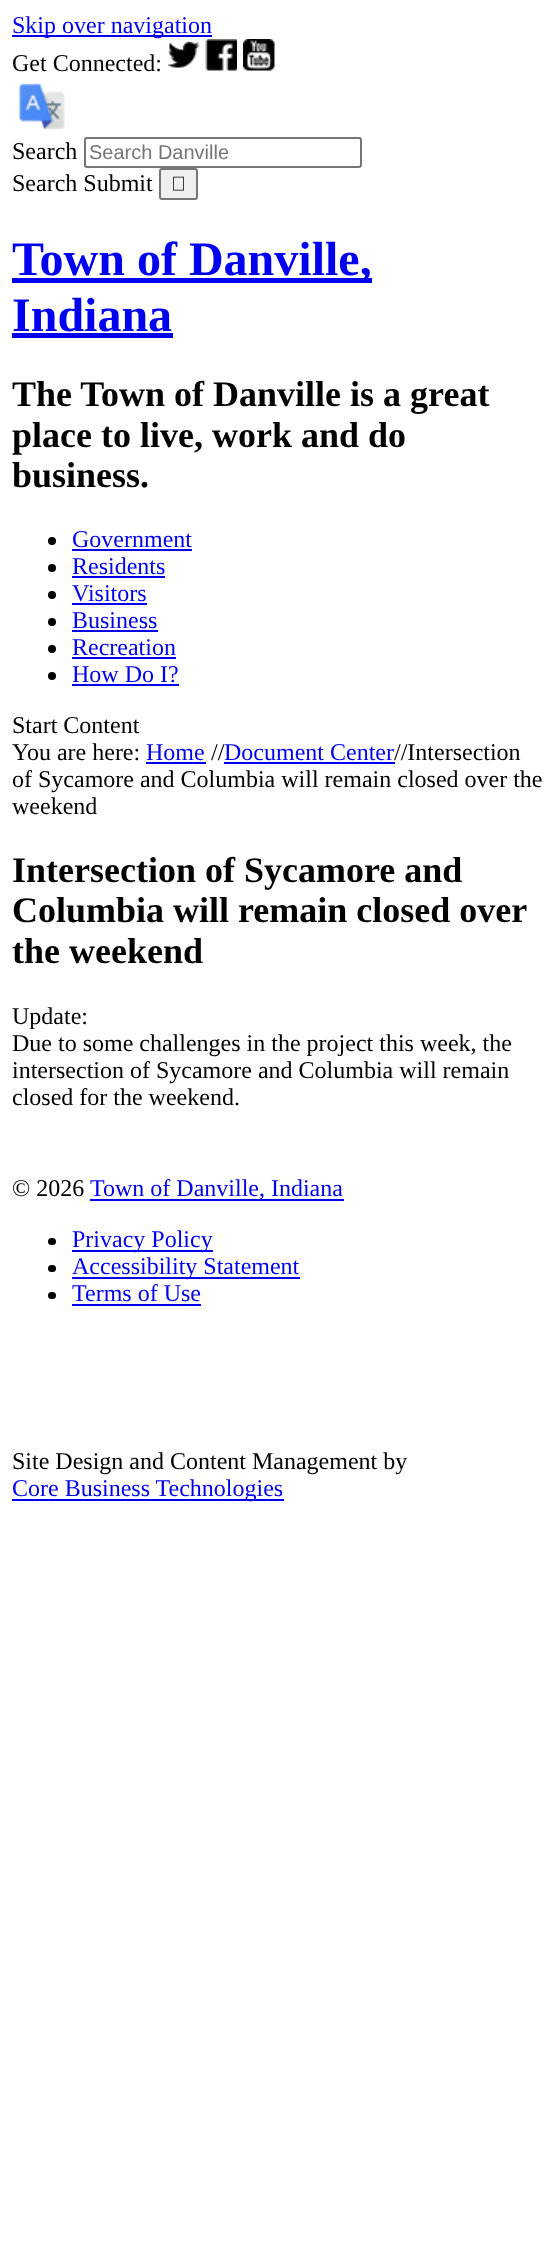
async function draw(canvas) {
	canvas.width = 555;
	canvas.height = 2267;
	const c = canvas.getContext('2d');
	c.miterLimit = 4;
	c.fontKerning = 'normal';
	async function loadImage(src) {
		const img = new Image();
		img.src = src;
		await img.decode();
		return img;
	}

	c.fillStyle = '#fff';
	c.fillRect(0, 0, 555, 2267);
	c.fillStyle = '#00e';
	c.fillRect(12, 35, 200, 2);
	c.font = '24px Liberation Serif';
	c.fillText('Skip over navigation', 12, 33);
	c.fillStyle = '#000';
	c.fillText('Get Connected:', 12, 71);
	c.drawImage(await loadImage('img1.png'), 168, 41, 32, 27);
	c.drawImage(await loadImage('img2.png'), 205, 39, 32, 32);
	c.drawImage(await loadImage('img3.png'), 243, 39, 32, 32);
	c.drawImage(await loadImage('img4.png'), 19, 83, 46, 47);
	c.fillText('Search', 12, 159);
	c.beginPath();
	c.roundRect(85, 138, 276, 29, 2);
	c.strokeStyle = '#767676';
	c.lineWidth = 2;
	c.stroke();
	c.font = '20px Liberation Sans';
	c.fillStyle = '#757575';
	c.fillText('Search Danville', 89, 159);
	c.font = '24px Liberation Serif';
	c.fillStyle = '#000';
	c.fillText('Search Submit', 12, 191);
	c.fillStyle = '#efefef';
	c.beginPath();
	c.roundRect(160, 169, 37, 30, 2);
	c.fill();
	c.stroke();
	c.drawImage(await loadImage('img5.png'), 173, 176, 11, 15);
	c.fillStyle = '#00e';
	c.fillRect(12, 278, 360, 5);
	c.font = 'bold 48px Liberation Serif';
	c.fillText('Town of Danville,', 12, 275);
	c.fillText('Indiana', 12, 331);
	c.fillRect(12, 333, 161, 5);
	c.font = 'bold 36px Liberation Serif';
	c.fillStyle = '#000';
	for (const [text, x, y] of [
		['The Town of Danville is a great', 12, 406],
		['place to live, work and do', 12, 447],
		['business.', 12, 487],
	]) {
		c.fillText(text, x, y);
	}
	c.beginPath();
	c.arc(52, 541, 4, 0, 2 * Math.PI);
	c.fill();
	c.font = '24px Liberation Serif';
	c.fillStyle = '#00e';
	c.fillText('Government', 72, 547);
	c.fillRect(72, 549, 120, 2);
	c.fillStyle = '#000';
	c.beginPath();
	c.arc(52, 568, 4, 0, 2 * Math.PI);
	c.fill();
	c.fillStyle = '#00e';
	c.fillText('Residents', 72, 574);
	c.fillRect(72, 576, 93, 2);
	c.fillStyle = '#000';
	c.beginPath();
	c.arc(52, 595, 4, 0, 2 * Math.PI);
	c.fill();
	c.fillStyle = '#00e';
	c.fillText('Visitors', 72, 601);
	c.fillRect(72, 603, 75, 2);
	c.fillStyle = '#000';
	c.beginPath();
	c.arc(52, 622, 4, 0, 2 * Math.PI);
	c.fill();
	c.fillStyle = '#00e';
	c.fillText('Business', 72, 628);
	c.fillRect(72, 630, 86, 2);
	c.fillStyle = '#000';
	c.beginPath();
	c.arc(52, 649, 4, 0, 2 * Math.PI);
	c.fill();
	c.fillStyle = '#00e';
	c.fillText('Recreation', 72, 655);
	c.fillRect(72, 657, 104, 2);
	c.fillStyle = '#000';
	c.beginPath();
	c.arc(52, 676, 4, 0, 2 * Math.PI);
	c.fill();
	c.fillStyle = '#00e';
	c.fillText('How Do I?', 72, 682);
	c.fillRect(72, 684, 107, 2);
	c.fillStyle = '#000';
	c.fillText('Start Content', 12, 733);
	c.fillText('You are here:', 12, 760);
	c.fillStyle = '#00e';
	c.fillText('Home', 146, 760);
	c.fillRect(146, 762, 60, 2);
	c.fillStyle = '#000';
	c.fillText('//', 211, 760);
	c.fillStyle = '#00e';
	c.fillText('Document Center', 224, 760);
	c.fillRect(224, 762, 171, 2);
	c.fillStyle = '#000';
	for (const [text, x, y] of [
		['//Intersection', 394, 760],
		['of Sycamore and Columbia will remain closed over the', 12, 787],
		['weekend', 12, 814],
	]) {
		c.fillText(text, x, y);
	}
	c.font = 'bold 36px Liberation Serif';
	for (const [text, x, y] of [
		['Intersection of Sycamore and', 12, 882],
		['Columbia will remain closed over', 12, 922],
		['the weekend', 12, 963],
	]) {
		c.fillText(text, x, y);
	}
	c.font = '24px Liberation Serif';
	for (const [text, x, y] of [
		['Update:', 12, 1024],
		['Due to some challenges in the project this week, the', 12, 1051],
		['intersection of Sycamore and Columbia will remain', 12, 1078],
		['closed for the weekend.', 12, 1105],
		['© 2026', 12, 1196],
	]) {
		c.fillText(text, x, y);
	}
	c.fillStyle = '#00e';
	c.fillRect(90, 1199, 254, 2);
	c.fillText('Town of Danville, Indiana', 90, 1196);
	c.fillStyle = '#000';
	c.beginPath();
	c.roundRect(48, 1238, 8, 7, 3.5);
	c.fill();
	c.fillStyle = '#00e';
	c.fillRect(72, 1250, 141, 2);
	c.fillText('Privacy Policy', 72, 1247);
	c.fillStyle = '#000';
	c.beginPath();
	c.roundRect(48, 1265, 8, 7, 3.5);
	c.fill();
	c.fillStyle = '#00e';
	c.fillRect(72, 1277, 228, 2);
	c.fillText('Accessibility Statement', 72, 1274);
	c.fillStyle = '#000';
	c.beginPath();
	c.roundRect(48, 1292, 8, 7, 3.5);
	c.fill();
	c.fillStyle = '#00e';
	c.fillText('Terms of Use', 72, 1301);
	c.fillRect(72, 1304, 129, 2);
	c.fillStyle = '#000';
	c.fillText('Site Design and Content Management by', 12, 1469);
	c.fillStyle = '#00e';
	c.fillRect(12, 1499, 272, 2);
	c.fillText('Core Business Technologies', 12, 1496);
}

draw(document.querySelector('canvas'));
